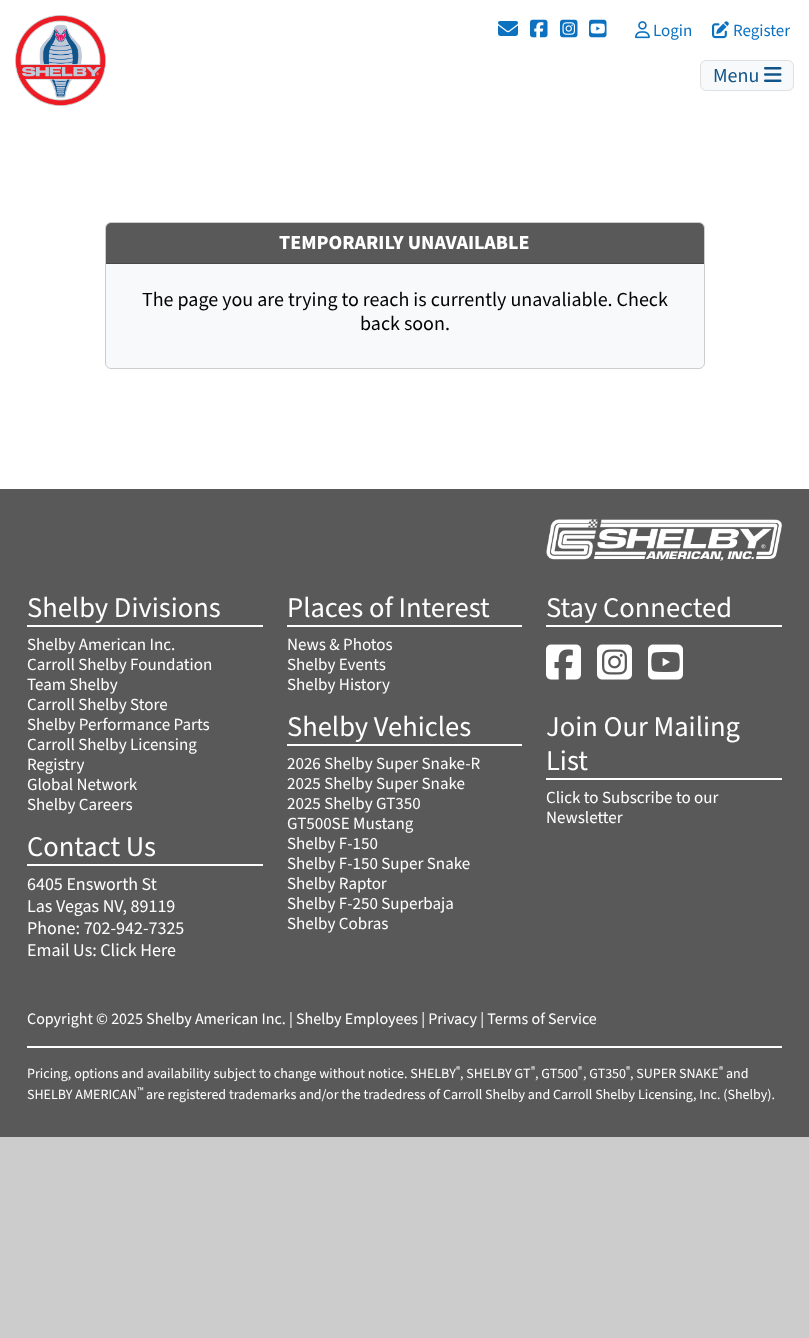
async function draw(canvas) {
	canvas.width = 809;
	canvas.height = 1338;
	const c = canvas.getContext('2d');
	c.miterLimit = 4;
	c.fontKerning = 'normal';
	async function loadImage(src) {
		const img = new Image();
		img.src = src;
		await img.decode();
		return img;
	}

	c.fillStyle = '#ccc';
	c.fillRect(0, 0, 809, 1338);
	c.fillStyle = '#fff';
	c.fillRect(0, 0, 809, 489);
	c.drawImage(await loadImage('img1.png'), 15, 15, 91, 91);
	c.drawImage(await loadImage('img2.png'), 498, 21, 20, 15);
	c.drawImage(await loadImage('img3.png'), 530, 19, 18, 19);
	c.drawImage(await loadImage('img4.png'), 560, 19, 18, 19);
	c.drawImage(await loadImage('img5.png'), 589, 19, 18, 19);
	c.drawImage(await loadImage('img6.png'), 635, 21, 15, 18);
	c.font = '17px Source Sans Pro';
	c.fillStyle = '#0c72c0';
	c.fillText('Login', 653, 36);
	c.drawImage(await loadImage('img7.png'), 712, 21, 17, 18);
	c.fillText('Register', 733, 36);
	c.fillStyle = '#f8f9fa';
	c.beginPath();
	c.roundRect(700.5, 60.5, 93, 30, 5.5);
	c.fill();
	c.strokeStyle = '#dfe0e1';
	c.stroke();
	c.font = '20px Source Sans Pro';
	c.fillStyle = '#115489';
	c.fillText('Menu', 713, 82);
	c.drawImage(await loadImage('img8.png'), 764, 67, 18, 15);
	c.fillStyle = '#f8f9fa';
	c.beginPath();
	c.roundRect(105.5, 222.5, 599, 146, 5.5);
	c.fill();
	c.strokeStyle = '#cccdce';
	c.stroke();
	c.fillStyle = '#595959';
	c.beginPath();
	c.roundRect(106, 223, 598, 41, [5, 5, 0, 0]);
	c.fill();
	c.fillStyle = '#494949';
	c.fillRect(106, 263, 598, 1);
	c.font = 'bold 20px Source Sans Pro';
	c.fillStyle = '#fff';
	c.fillText('TEMPORARILY UNAVAILABLE', 279, 249);
	c.font = '20px Source Sans Pro';
	c.fillStyle = '#000';
	c.fillText('The page you are trying to reach is currently unavaliable. Check', 142, 306);
	c.fillText('back soon.', 360, 330);
	c.fillStyle = '#595959';
	c.fillRect(0, 489, 809, 648);
	c.drawImage(await loadImage('img9.png'), 546, 519, 236, 42);
	c.fillStyle = '#fff';
	c.fillRect(27, 625, 236, 2);
	c.font = '28.5px Source Sans Pro';
	c.fillText('Shelby Divisions', 27, 617);
	c.font = '17px Source Sans Pro';
	for (const [text, x, y] of [
		['Shelby American Inc.', 27, 650],
		['Carroll Shelby Foundation', 27, 670],
		['Team Shelby', 27, 690],
		['Carroll Shelby Store', 27, 710],
		['Shelby Performance Parts', 27, 730],
		['Carroll Shelby Licensing', 27, 750],
		['Registry', 27, 770],
		['Global Network', 27, 790],
		['Shelby Careers', 27, 810],
	]) {
		c.fillText(text, x, y);
	}
	c.fillRect(27, 864, 236, 2);
	c.font = '28.5px Source Sans Pro';
	c.fillText('Contact Us', 27, 856);
	c.font = '18px Source Sans Pro';
	for (const [text, x, y] of [
		['6405 Ensworth St', 27, 890],
		['Las Vegas NV, 89119', 27, 912],
		['Phone: 702-942-7325', 27, 934],
		['Email Us: Click Here', 27, 956],
	]) {
		c.fillText(text, x, y);
	}
	c.fillRect(287, 625, 235, 2);
	c.font = '28.5px Source Sans Pro';
	c.fillText('Places of Interest', 287, 617);
	c.font = '17px Source Sans Pro';
	for (const [text, x, y] of [
		['News & Photos', 287, 650],
		['Shelby Events', 287, 670],
		['Shelby History', 287, 690],
	]) {
		c.fillText(text, x, y);
	}
	c.fillRect(287, 744, 235, 2);
	c.font = '28.5px Source Sans Pro';
	c.fillText('Shelby Vehicles', 287, 736);
	c.font = '17px Source Sans Pro';
	for (const [text, x, y] of [
		['2026 Shelby Super Snake-R', 287, 769],
		['2025 Shelby Super Snake', 287, 789],
		['2025 Shelby GT350', 287, 809],
		['GT500SE Mustang', 287, 829],
		['Shelby F-150', 287, 849],
		['Shelby F-150 Super Snake', 287, 869],
		['Shelby Raptor', 287, 889],
		['Shelby F-250 Superbaja', 287, 909],
		['Shelby Cobras', 287, 929],
	]) {
		c.fillText(text, x, y);
	}
	c.fillRect(546, 625, 236, 2);
	c.font = '28.5px Source Sans Pro';
	c.fillText('Stay Connected', 546, 617);
	c.drawImage(await loadImage('img10.png'), 546, 644, 35, 36);
	c.drawImage(await loadImage('img11.png'), 597, 644, 35, 36);
	c.drawImage(await loadImage('img12.png'), 648, 644, 35, 36);
	c.fillRect(546, 778, 236, 2);
	c.fillText('Join Our Mailing', 546, 736);
	c.fillText('List', 546, 770);
	c.font = '17px Source Sans Pro';
	c.fillText('Click to Subscribe to our', 546, 803);
	c.fillText('Newsletter', 546, 823);
	c.fillRect(27, 1046, 755, 2);
	c.font = '16px Source Sans Pro';
	c.fillText('Copyright © 2025 Shelby American Inc. | Shelby Employees | Privacy | Terms of Service', 27, 1024);
	c.font = '10px Source Sans Pro';
	for (const [text, x, y] of [
		['®', 456, 1073],
		['®', 531, 1073],
		['®', 578, 1073],
		['®', 626, 1073],
		['®', 719, 1073],
	]) {
		c.fillText(text, x, y);
	}
	c.font = '14px Source Sans Pro';
	for (const [text, x, y] of [
		['Pricing, options and availability subject to change without notice. SHELBY', 27, 1078],
		[', SHELBY GT', 460, 1078],
		[', GT500', 535, 1078],
		[', GT350', 583, 1078],
		[', SUPER SNAKE', 630, 1078],
		['and', 726, 1078],
		['SHELBY AMERICAN', 27, 1099],
	]) {
		c.fillText(text, x, y);
	}
	c.font = '10px Source Sans Pro';
	c.fillText('™', 137, 1094);
	c.font = '14px Source Sans Pro';
	c.fillText('are registered trademarks and/or the tradedress of Carroll Shelby and Carroll Shelby Licensing, Inc. (Shelby).', 146, 1099);
}

draw(document.querySelector('canvas'));
